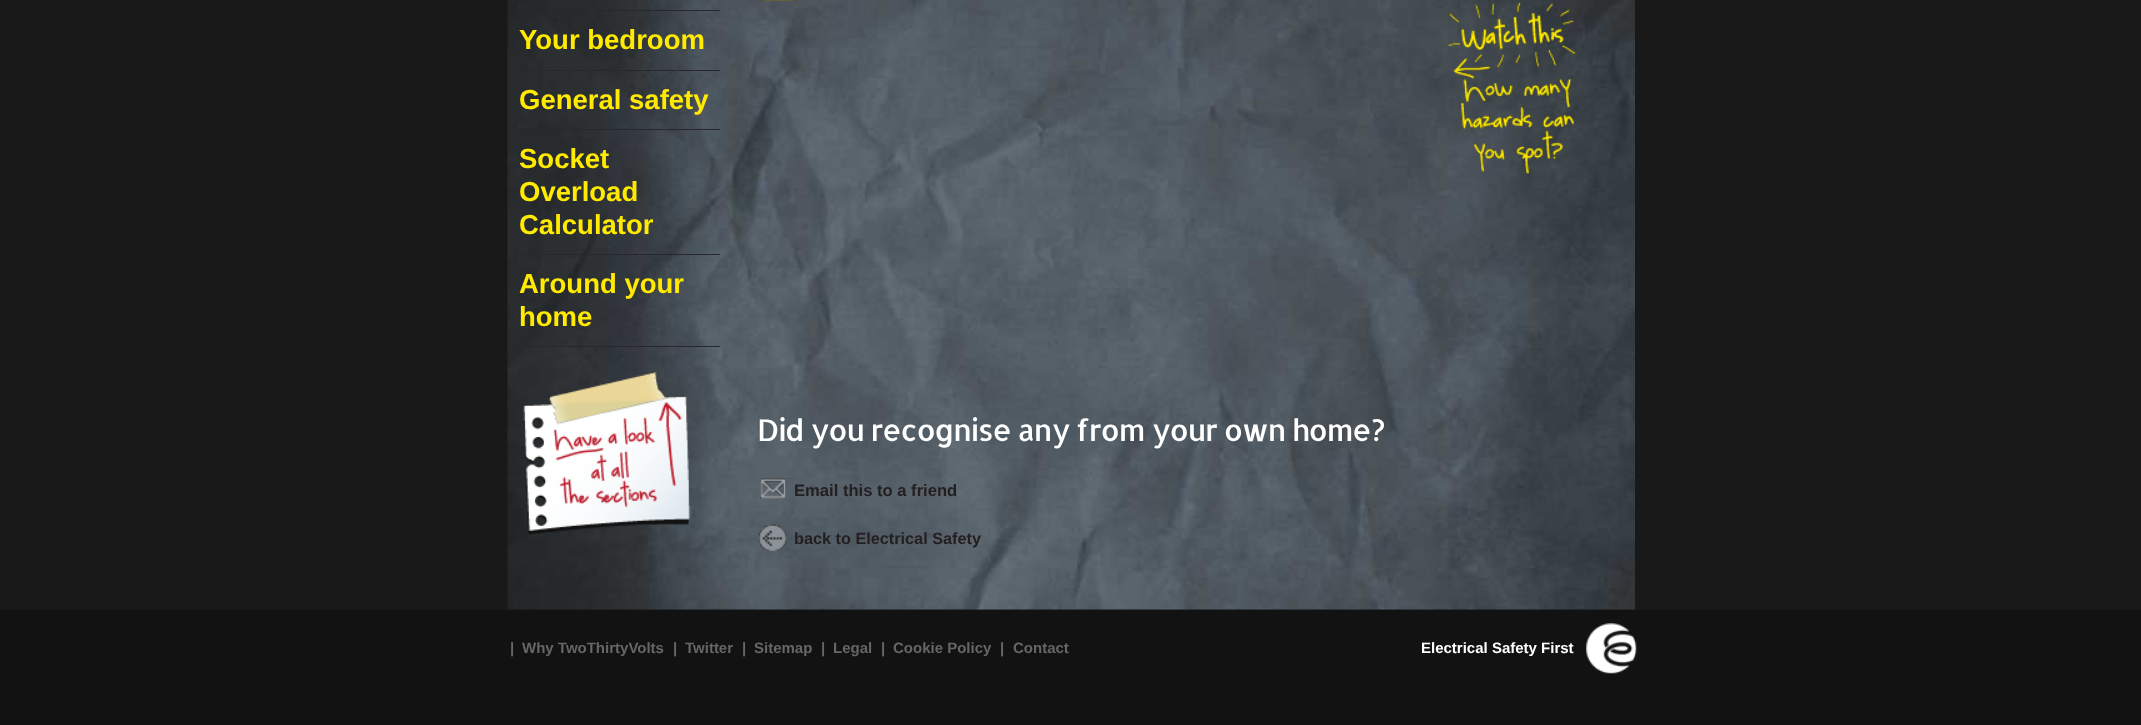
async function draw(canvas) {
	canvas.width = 2141;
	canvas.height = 725;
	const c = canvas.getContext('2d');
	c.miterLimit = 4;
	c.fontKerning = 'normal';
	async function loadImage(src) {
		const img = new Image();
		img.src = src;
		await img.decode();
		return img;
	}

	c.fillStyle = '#121212';
	c.fillRect(0, 0, 2141, 725);
	c.fillStyle = '#191919';
	c.fillRect(0, 0, 2141, 610);
	c.drawImage(await loadImage('img1.png'), 507, 0, 1128, 610);
	c.fillStyle = '#28272b';
	c.fillRect(520, 10, 200, 1);
	c.fillRect(520, 70, 200, 1);
	c.font = 'bold 27.5px Liberation Sans';
	c.fillStyle = '#ffea00';
	c.fillText('Your bedroom', 519, 49);
	c.fillStyle = '#28272b';
	c.fillRect(520, 129, 200, 1);
	c.fillStyle = '#ffea00';
	c.fillText('General safety', 519, 109);
	c.fillStyle = '#28272b';
	c.fillRect(520, 254, 200, 1);
	c.fillStyle = '#ffea00';
	for (const [text, x, y] of [
		['Socket', 519, 168],
		['Overload', 519, 201],
		['Calculator', 519, 234],
	]) {
		c.fillText(text, x, y);
	}
	c.fillStyle = '#28272b';
	c.fillRect(520, 346, 200, 1);
	c.fillStyle = '#ffea00';
	c.fillText('Around your', 519, 293);
	c.fillText('home', 519, 326);
	c.drawImage(await loadImage('img2.png'), 523, 371, 168, 164);
	c.drawImage(await loadImage('img3.png'), 1447, 2, 128, 172);
	c.drawImage(await loadImage('img4.png'), 762, 0, 33, 1);
	c.letterSpacing = '-1.25px';
	c.font = '30px Allerta';
	c.fillStyle = '#fff';
	c.fillText('Did you recognise any from your own home?', 757, 441);
	c.drawImage(await loadImage('img5.png'), 760, 478, 26, 21);
	c.letterSpacing = '0px';
	c.font = 'bold 16.6px Liberation Sans';
	c.fillStyle = '#231f20';
	c.fillText('Email this to a friend', 794, 496);
	c.drawImage(await loadImage('img6.png'), 758, 524, 29, 27);
	c.font = 'bold 16.25px Liberation Sans';
	c.fillText('back to Electrical Safety', 794, 544);
	c.font = 'bold 15px Liberation Sans';
	c.fillStyle = '#666';
	for (const [text, x, y] of [
		['|', 510, 653],
		['Why TwoThirtyVolts', 522, 653],
		['|', 673, 653],
		['Twitter', 685, 653],
		['|', 742, 653],
		['Sitemap', 754, 653],
		['|', 821, 653],
		['Legal', 833, 653],
		['|', 881, 653],
		['Cookie Policy', 893, 653],
		['|', 1000, 653],
		['Contact', 1013, 653],
	]) {
		c.fillText(text, x, y);
	}
	c.drawImage(await loadImage('img7.png'), 1586, 623, 51, 51);
	c.fillStyle = '#fff';
	c.fillText('Electrical Safety First', 1421, 653);
}

draw(document.querySelector('canvas'));
